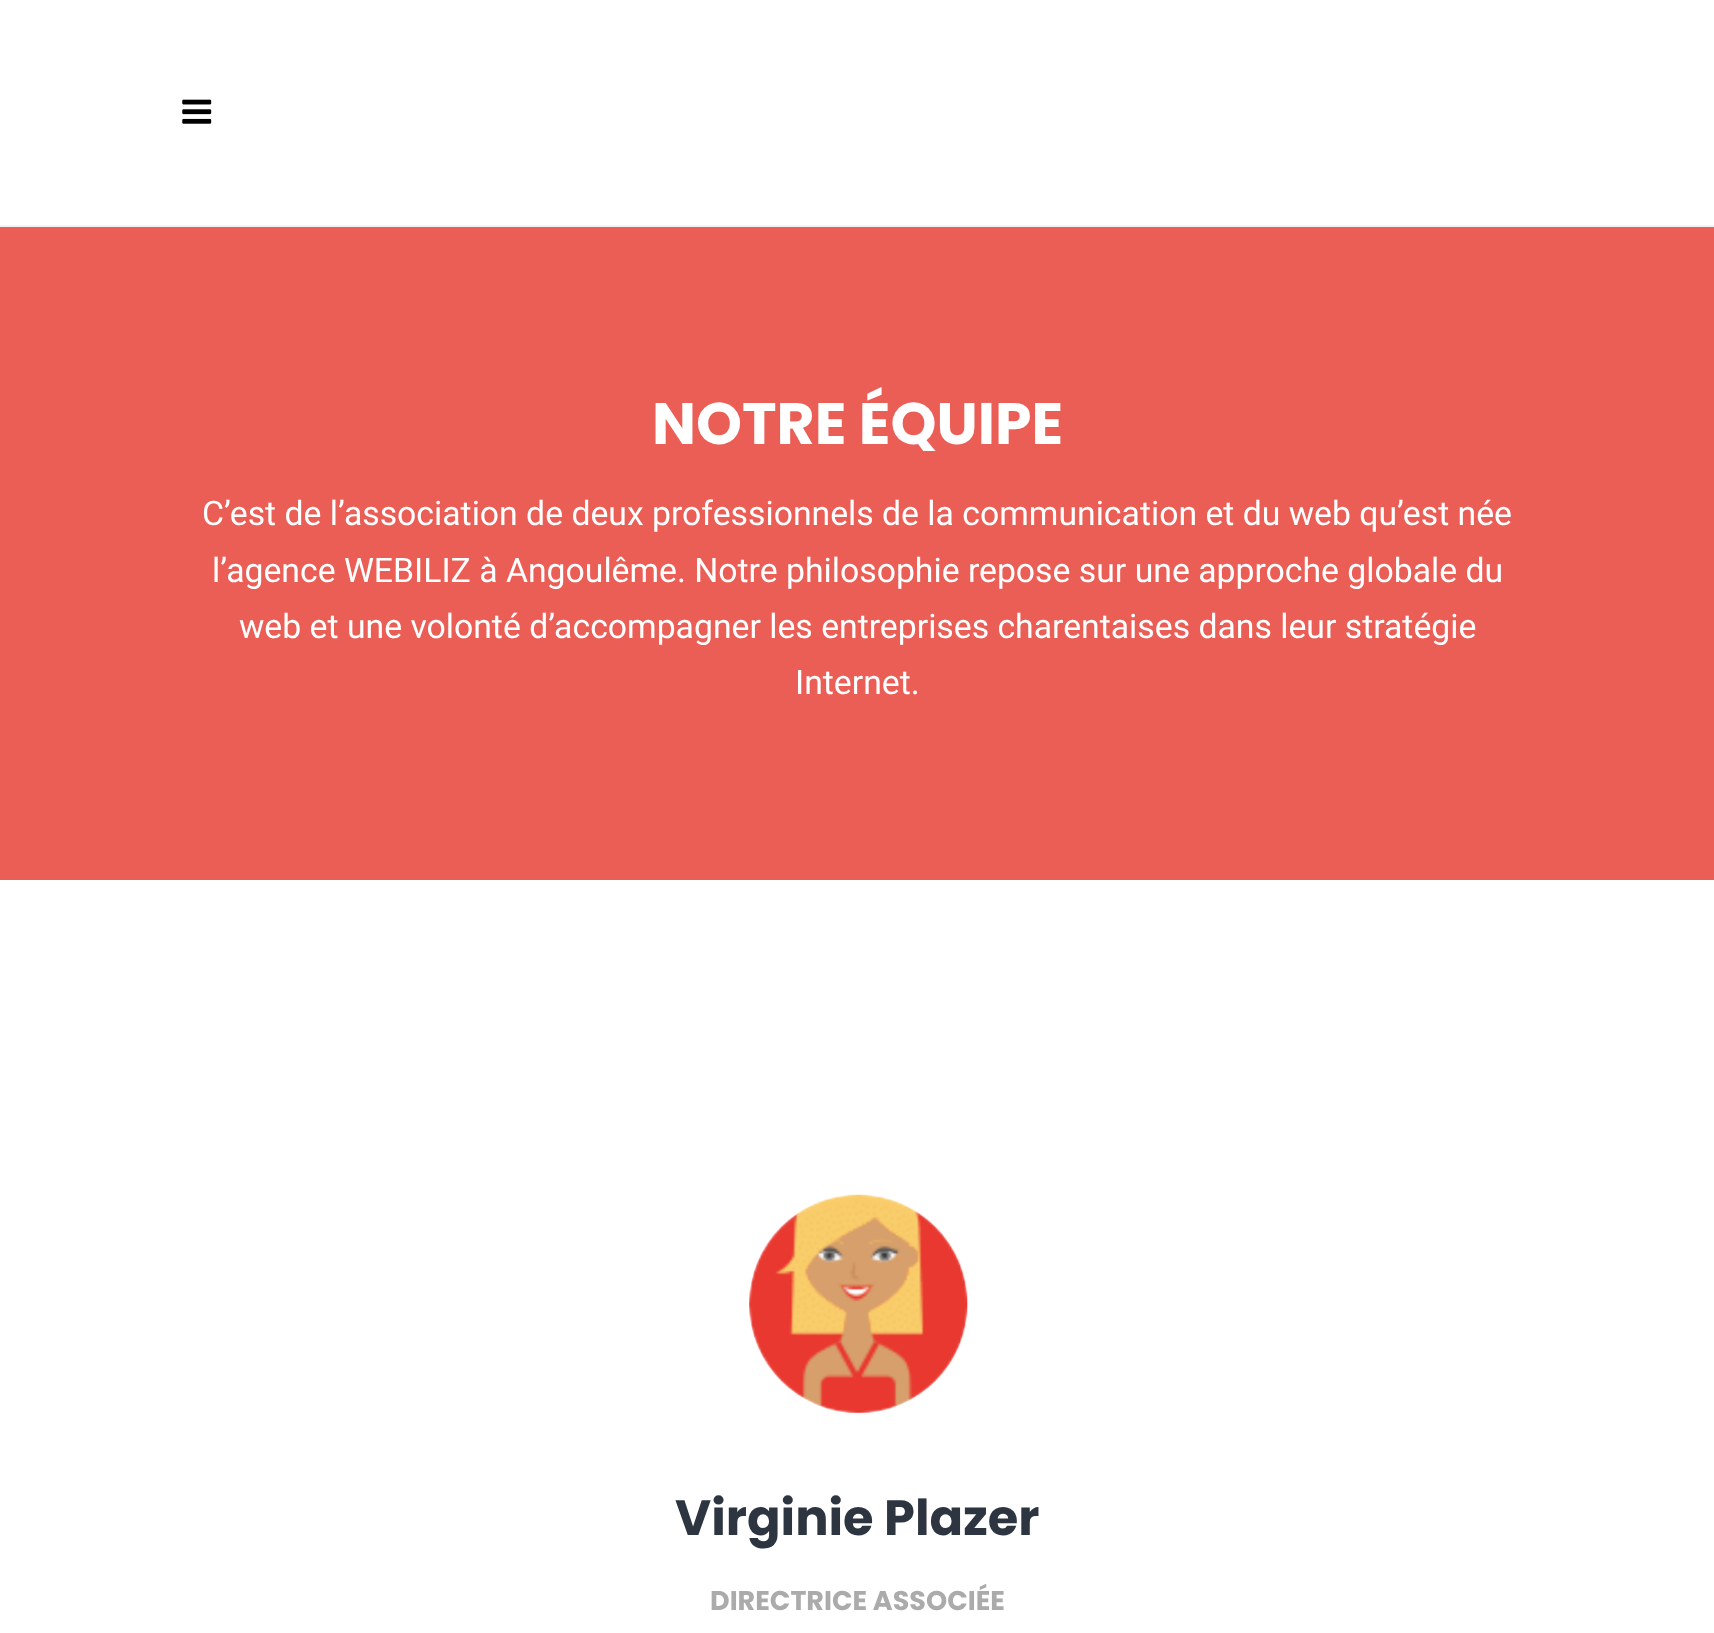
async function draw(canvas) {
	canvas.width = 1714;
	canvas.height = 1633;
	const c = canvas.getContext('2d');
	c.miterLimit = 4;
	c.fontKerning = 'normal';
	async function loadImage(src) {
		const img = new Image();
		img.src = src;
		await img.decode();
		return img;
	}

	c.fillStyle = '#fff';
	c.fillRect(0, 0, 1714, 1633);
	c.fillStyle = '#f2f2f2';
	c.fillRect(0, 225, 1714, 2);
	c.drawImage(await loadImage('img1.png'), 182, 99, 30, 25);
	c.fillStyle = '#eb5e56';
	c.fillRect(0, 227, 1714, 653);
	c.font = 'bold 58.5px Poppins';
	c.fillStyle = '#fff';
	c.fillText('NOTRE ÉQUIPE', 652, 444);
	c.font = '33.75px Roboto';
	for (const [text, x, y] of [
		['C’est de l’association de deux professionnels de la communication et du web qu’est née', 202, 525],
		['l’agence WEBILIZ à Angoulême. Notre philosophie repose sur une approche globale du', 212, 582],
		['web et une volonté d’accompagner les entreprises charentaises dans leur stratégie', 239, 638],
		['Internet.', 795, 694],
	]) {
		c.fillText(text, x, y);
	}
	c.drawImage(await loadImage('img2.png'), 749, 1194, 219, 220);
	c.font = 'bold 49.5px Poppins';
	c.fillStyle = '#2d3540';
	c.fillText('Virginie Plazer', 675, 1535);
	c.font = 'bold 27px Poppins';
	c.fillStyle = '#ababab';
	c.fillText('DIRECTRICE ASSOCIÉE', 710, 1610);
}

draw(document.querySelector('canvas'));
